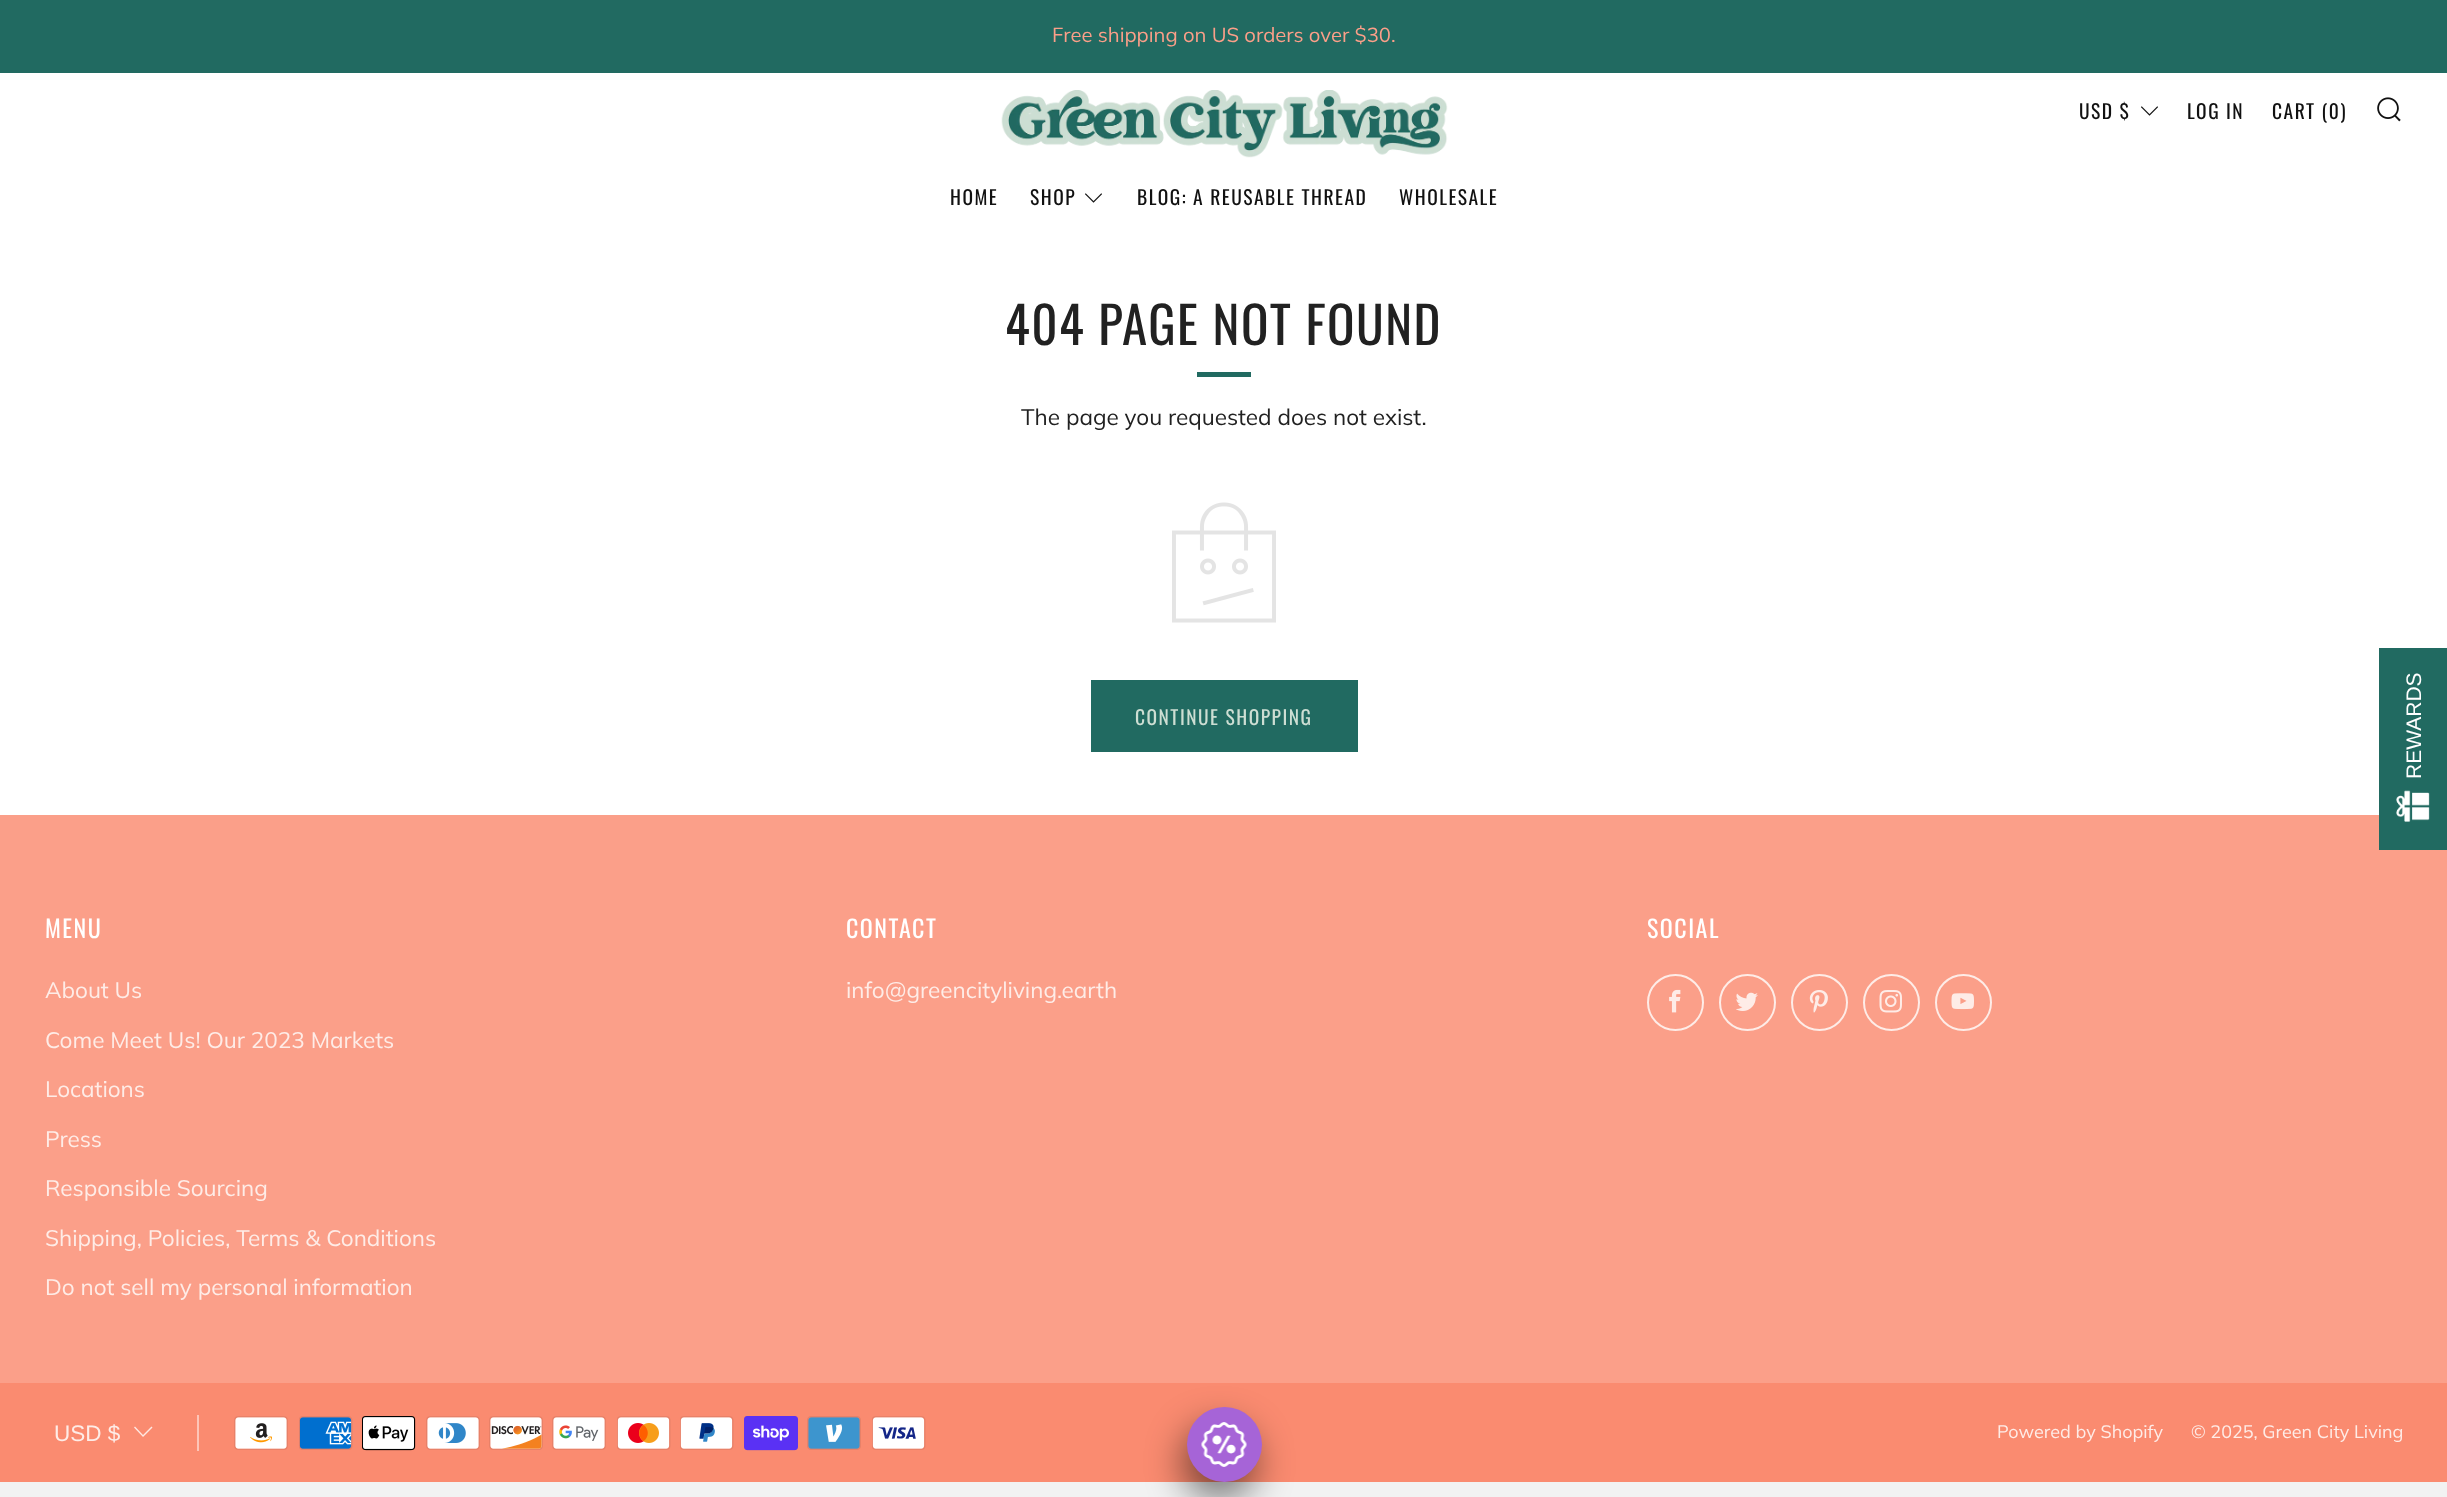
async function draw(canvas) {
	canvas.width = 2447;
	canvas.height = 1497;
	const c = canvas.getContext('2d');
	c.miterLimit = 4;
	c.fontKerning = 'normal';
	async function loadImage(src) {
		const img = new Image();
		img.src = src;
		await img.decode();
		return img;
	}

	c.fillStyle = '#f2f2f2';
	c.fillRect(0, 0, 2447, 1497);
	c.fillStyle = '#fff';
	c.fillRect(0, 73, 2447, 742);
	c.fillStyle = '#216a61';
	c.fillRect(0, 0, 2447, 73);
	c.font = '20.25px Muli';
	c.fillStyle = '#fb9f89';
	c.fillText('Free shipping on US orders over $30.', 1052, 42);
	c.drawImage(await loadImage('img1.png'), 1001, 90, 447, 68);
	c.letterSpacing = '1.5px';
	c.font = '19.5px Oswald';
	c.fillStyle = '#111';
	c.fillText('USD $', 2079, 119);
	c.drawImage(await loadImage('img2.png'), 2141, 106, 17, 10);
	c.fillText('LOG IN', 2187, 119);
	c.fillText('CART (0)', 2272, 119);
	c.drawImage(await loadImage('img3.png'), 2377, 97, 24, 25);
	c.fillText('HOME', 950, 205);
	c.fillText('SHOP', 1030, 205);
	c.drawImage(await loadImage('img2.png'), 1085, 193, 17, 10);
	c.fillText('BLOG: A REUSABLE THREAD', 1137, 205);
	c.fillText('WHOLESALE', 1399, 205);
	c.font = '51px Oswald';
	c.fillStyle = '#212121';
	c.fillText('404 PAGE NOT FOUND', 1005, 345);
	c.fillStyle = '#216a61';
	c.fillRect(1197, 372, 54, 5);
	c.letterSpacing = '0px';
	c.font = '22.5px Muli';
	c.fillStyle = '#212121';
	c.fillText('The page you requested does not exist.', 1021, 425);
	c.drawImage(await loadImage('img4.png'), 1172, 502, 104, 121);
	c.fillStyle = '#216a61';
	c.fillRect(1091, 680, 267, 72);
	c.letterSpacing = '1.5px';
	c.font = '19.5px Oswald';
	c.fillStyle = '#cdded3';
	c.fillText('CONTINUE SHOPPING', 1135, 725);
	c.fillStyle = '#fb9f89';
	c.fillRect(0, 815, 2447, 568);
	c.font = '24px Oswald';
	c.fillStyle = '#fff';
	c.fillText('MENU', 45, 938);
	c.letterSpacing = '0px';
	c.font = '22.5px Muli';
	c.fillStyle = '#feece7';
	for (const [text, x, y] of [
		['About Us', 45, 998],
		['Come Meet Us! Our 2023 Markets', 45, 1048],
		['Locations', 45, 1097],
		['Press', 45, 1147],
		['Responsible Sourcing', 45, 1196],
		['Shipping, Policies, Terms & Conditions', 45, 1246],
		['Do not sell my personal information', 45, 1295],
	]) {
		c.fillText(text, x, y);
	}
	c.letterSpacing = '1.5px';
	c.font = '24px Oswald';
	c.fillStyle = '#fff';
	c.fillText('CONTACT', 846, 938);
	c.letterSpacing = '0px';
	c.font = '22.5px Muli';
	c.fillStyle = '#feece7';
	c.fillText('info@greencityliving.earth', 846, 998);
	c.letterSpacing = '1.5px';
	c.font = '24px Oswald';
	c.fillStyle = '#fff';
	c.fillText('SOCIAL', 1647, 938);
	c.beginPath();
	c.arc(1675.5, 1002.5, 27.5, 0, 2 * Math.PI);
	c.strokeStyle = '#feece7';
	c.lineWidth = 2;
	c.stroke();
	c.drawImage(await loadImage('img5.png'), 1669, 989, 12, 24);
	c.beginPath();
	c.arc(1747.5, 1002.5, 27.5, 0, 2 * Math.PI);
	c.stroke();
	c.drawImage(await loadImage('img6.png'), 1736, 992, 22, 19);
	c.beginPath();
	c.arc(1819.5, 1002.5, 27.5, 0, 2 * Math.PI);
	c.stroke();
	c.drawImage(await loadImage('img7.png'), 1809, 990, 19, 23);
	c.beginPath();
	c.arc(1891.5, 1002.5, 27.5, 0, 2 * Math.PI);
	c.stroke();
	c.drawImage(await loadImage('img8.png'), 1879, 990, 23, 23);
	c.beginPath();
	c.arc(1963.5, 1002.5, 27.5, 0, 2 * Math.PI);
	c.stroke();
	c.drawImage(await loadImage('img9.png'), 1951, 993, 23, 17);
	c.fillStyle = '#fa8b70';
	c.fillRect(0, 1383, 2447, 99);
	c.letterSpacing = '0px';
	c.font = '22.5px Liberation Sans';
	c.fillStyle = '#feece7';
	c.fillText('USD $', 54, 1441);
	c.fillStyle = '#fee8e2';
	c.beginPath();
	c.moveTo(135, 1426.5);
	c.lineTo(134, 1427.5);
	c.lineTo(143, 1437);
	c.lineTo(152.5, 1427.5);
	c.lineTo(151.5, 1426.5);
	c.lineTo(143, 1435);
	c.closePath();
	c.fill();
	c.fillStyle = '#fdc5b8';
	c.fillRect(197, 1415, 2, 36);
	c.drawImage(await loadImage('img10.png'), 234, 1416, 54, 34);
	c.drawImage(await loadImage('img11.png'), 299, 1416, 54, 34);
	c.drawImage(await loadImage('img12.png'), 362, 1416, 54, 35);
	c.drawImage(await loadImage('img13.png'), 426, 1416, 54, 34);
	c.drawImage(await loadImage('img14.png'), 489, 1416, 54, 34);
	c.drawImage(await loadImage('img15.png'), 552, 1416, 54, 34);
	c.drawImage(await loadImage('img16.png'), 617, 1416, 54, 34);
	c.drawImage(await loadImage('img17.png'), 680, 1416, 54, 34);
	c.drawImage(await loadImage('img18.png'), 744, 1416, 54, 35);
	c.drawImage(await loadImage('img19.png'), 807, 1416, 54, 34);
	c.drawImage(await loadImage('img20.png'), 872, 1416, 54, 34);
	c.font = '18px Muli';
	c.fillStyle = '#feece7';
	c.fillText('Powered by Shopify', 1997, 1438);
	c.fillText('© 2025, Green City Living', 2191, 1438);
	c.fillStyle = '#216a61';
	c.fillRect(2379, 648, 68, 202);
	c.font = '21px Liberation Sans';
	c.fillStyle = '#fff';
	c.save();
	c.translate(2421, 779);
	c.rotate(-90 * Math.PI / 180);
	c.fillText('REWARDS', 0, 0);
	c.restore();
	c.drawImage(await loadImage('img21.png'), 2396, 790, 34, 32);
	c.fillStyle = '#00000080';
	c.filter = 'blur(18px)';
	c.beginPath();
	c.roundRect(1182, 1425, 75, 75, 37.5);
	c.fill();
	c.filter = 'none';
	c.fillStyle = '#a664d7';
	c.beginPath();
	c.arc(1224.5, 1444.5, 37.5, 0, 2 * Math.PI);
	c.fill();
	c.drawImage(await loadImage('img22.png'), 1201, 1422, 46, 45);
}

draw(document.querySelector('canvas'));
